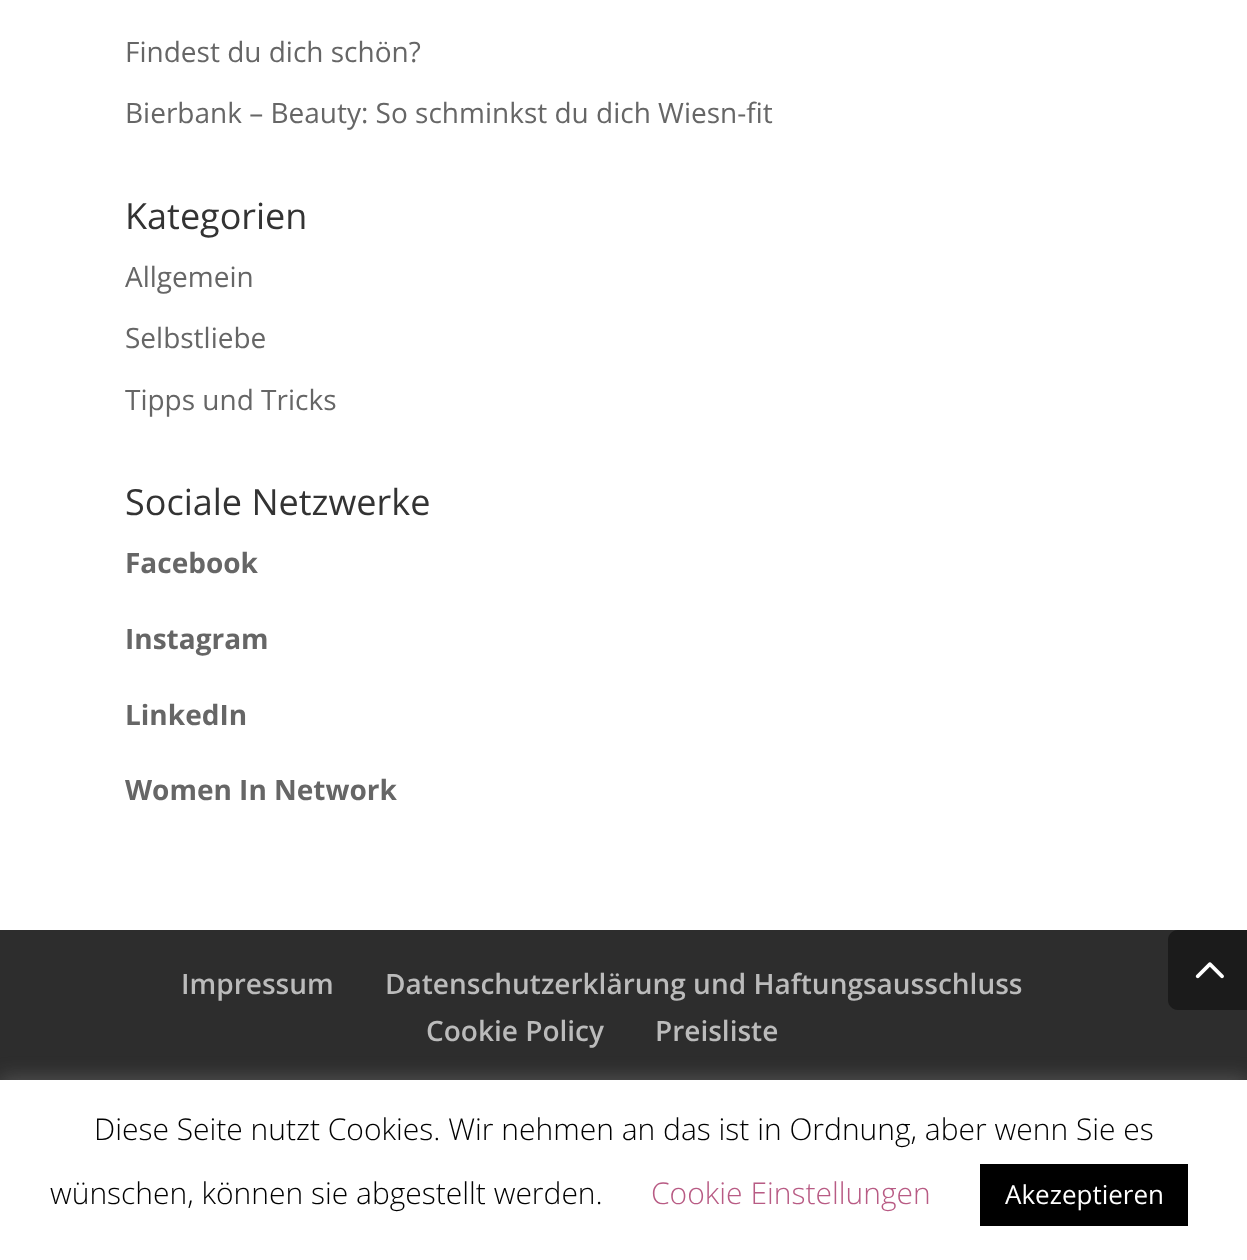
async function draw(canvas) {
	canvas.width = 1247;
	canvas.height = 1260;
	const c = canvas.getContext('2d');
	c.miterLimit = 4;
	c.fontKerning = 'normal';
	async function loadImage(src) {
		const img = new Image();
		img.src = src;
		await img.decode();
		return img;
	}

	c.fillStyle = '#fff';
	c.fillRect(0, 0, 1247, 1260);
	c.font = '28px Open Sans';
	c.fillStyle = '#666';
	c.fillText('Findest du dich schön?', 125, 62);
	c.fillText('Bierbank – Beauty: So schminkst du dich Wiesn-fit', 125, 123);
	c.font = '36px Open Sans';
	c.fillStyle = '#333';
	c.fillText('Kategorien', 125, 229);
	c.font = '28px Open Sans';
	c.fillStyle = '#666';
	for (const [text, x, y] of [
		['Allgemein', 125, 287],
		['Selbstliebe', 125, 348],
		['Tipps und Tricks', 125, 410],
	]) {
		c.fillText(text, x, y);
	}
	c.font = '36px Open Sans';
	c.fillStyle = '#333';
	c.fillText('Sociale Netzwerke', 125, 515);
	c.font = 'bold 28px Open Sans';
	c.fillStyle = '#666';
	for (const [text, x, y] of [
		['Facebook', 125, 573],
		['Instagram', 125, 649],
		['LinkedIn', 125, 725],
		['Women In Network', 125, 800],
	]) {
		c.fillText(text, x, y);
	}
	c.fillStyle = '#2d2d2d';
	c.fillRect(0, 930, 1247, 150);
	c.font = '600 28px Open Sans';
	c.fillStyle = '#bbb';
	for (const [text, x, y] of [
		['Impressum', 181, 994],
		['Datenschutzerklärung und Haftungsausschluss', 385, 994],
		['Cookie Policy', 426, 1041],
		['Preisliste', 655, 1041],
	]) {
		c.fillText(text, x, y);
	}
	c.fillStyle = '#1b1b1b';
	c.beginPath();
	c.moveTo(1178, 930);
	c.lineTo(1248, 930);
	c.lineTo(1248, 1010);
	c.lineTo(1178, 1010);
	c.bezierCurveTo(1172.5, 1010, 1168, 1005.5, 1168, 1000);
	c.lineTo(1168, 940);
	c.bezierCurveTo(1168, 934.5, 1172.5, 930, 1178, 930);
	c.closePath();
	c.fill();
	c.drawImage(await loadImage('img1.png'), 1195, 962, 29, 17);
	c.fillStyle = '#acabab4d';
	c.filter = 'blur(10px)';
	c.beginPath();
	c.rect(0, 1078, 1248, 180);
	c.fill();
	c.filter = 'none';
	c.fillStyle = '#fff';
	c.fillRect(0, 1080, 1247, 180);
	c.font = '300 30px Open Sans';
	c.fillStyle = '#000';
	c.fillText('Diese Seite nutzt Cookies. Wir nehmen an das ist in Ordnung, aber wenn Sie es', 94, 1140);
	c.fillText('wünschen, können sie abgestellt werden.', 50, 1204);
	c.fillStyle = '#b85b84';
	c.fillText('Cookie Einstellungen', 651, 1204);
	c.fillStyle = '#000';
	c.fillRect(980, 1164, 208, 62);
	c.font = '26px Open Sans';
	c.fillStyle = '#fff';
	c.fillText('Akezeptieren', 1005, 1204);
}

draw(document.querySelector('canvas'));
